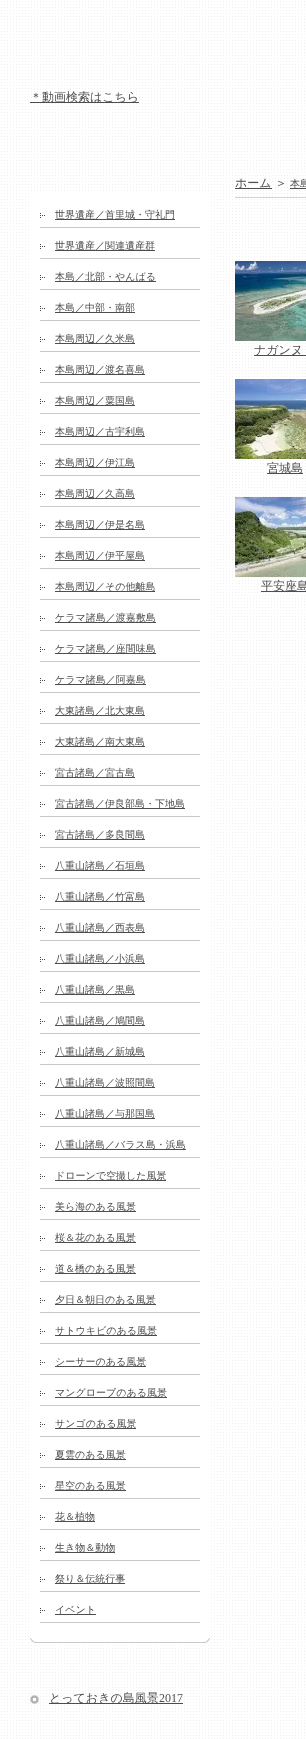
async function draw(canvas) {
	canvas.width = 306;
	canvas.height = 1739;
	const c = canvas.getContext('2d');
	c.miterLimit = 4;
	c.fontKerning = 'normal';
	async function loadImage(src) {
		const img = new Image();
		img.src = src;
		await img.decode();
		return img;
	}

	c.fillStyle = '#fff';
	c.fillRect(0, 0, 306, 1739);
	c.drawImage(await loadImage('img1.png'), 0, 0, 306, 1739);
	c.fillStyle = '#4d4d4d';
	c.fillRect(30, 102, 109, 1);
	c.font = '500 12px WenQuanYi Zen Hei';
	c.fillText('＊動画検索はこちら', 30, 101);
	c.fillStyle = '#fff';
	c.fillRect(31, 193, 178, 1444);
	c.fillStyle = '#c9c9c9';
	c.fillRect(40, 227, 160, 1);
	c.drawImage(await loadImage('img2.png'), 40, 213, 5, 5);
	c.fillStyle = '#4d4d4d';
	c.fillRect(55, 219, 120, 1);
	c.font = '500 10px WenQuanYi Zen Hei';
	c.fillText('世界遺産／首里城・守礼門', 55, 218);
	c.fillStyle = '#c9c9c9';
	c.fillRect(40, 258, 160, 1);
	c.drawImage(await loadImage('img2.png'), 40, 244, 5, 5);
	c.fillStyle = '#4d4d4d';
	c.fillRect(55, 250, 100, 1);
	c.fillText('世界遺産／関連遺産群', 55, 249);
	c.fillStyle = '#c9c9c9';
	c.fillRect(40, 289, 160, 1);
	c.drawImage(await loadImage('img2.png'), 40, 275, 5, 5);
	c.fillStyle = '#4d4d4d';
	c.fillRect(55, 281, 101, 1);
	c.fillText('本島／北部・やんばる', 55, 280);
	c.fillStyle = '#c9c9c9';
	c.fillRect(40, 320, 160, 1);
	c.drawImage(await loadImage('img2.png'), 40, 306, 5, 5);
	c.fillStyle = '#4d4d4d';
	c.fillRect(55, 312, 80, 1);
	c.fillText('本島／中部・南部', 55, 311);
	c.fillStyle = '#c9c9c9';
	c.fillRect(40, 351, 160, 1);
	c.drawImage(await loadImage('img2.png'), 40, 337, 5, 5);
	c.fillStyle = '#4d4d4d';
	c.fillRect(55, 343, 80, 1);
	c.fillText('本島周辺／久米島', 55, 342);
	c.fillStyle = '#c9c9c9';
	c.fillRect(40, 382, 160, 1);
	c.drawImage(await loadImage('img2.png'), 40, 368, 5, 5);
	c.fillStyle = '#4d4d4d';
	c.fillRect(55, 374, 90, 1);
	c.fillText('本島周辺／渡名喜島', 55, 373);
	c.fillStyle = '#c9c9c9';
	c.fillRect(40, 413, 160, 1);
	c.drawImage(await loadImage('img2.png'), 40, 399, 5, 5);
	c.fillStyle = '#4d4d4d';
	c.fillRect(55, 405, 80, 1);
	c.fillText('本島周辺／粟国島', 55, 404);
	c.fillStyle = '#c9c9c9';
	c.fillRect(40, 444, 160, 1);
	c.drawImage(await loadImage('img2.png'), 40, 430, 5, 5);
	c.fillStyle = '#4d4d4d';
	c.fillRect(55, 436, 90, 1);
	c.fillText('本島周辺／古宇利島', 55, 435);
	c.fillStyle = '#c9c9c9';
	c.fillRect(40, 475, 160, 1);
	c.drawImage(await loadImage('img2.png'), 40, 461, 5, 5);
	c.fillStyle = '#4d4d4d';
	c.fillRect(55, 467, 80, 1);
	c.fillText('本島周辺／伊江島', 55, 466);
	c.fillStyle = '#c9c9c9';
	c.fillRect(40, 506, 160, 1);
	c.drawImage(await loadImage('img2.png'), 40, 492, 5, 5);
	c.fillStyle = '#4d4d4d';
	c.fillRect(55, 498, 80, 1);
	c.fillText('本島周辺／久高島', 55, 497);
	c.fillStyle = '#c9c9c9';
	c.fillRect(40, 537, 160, 1);
	c.drawImage(await loadImage('img2.png'), 40, 523, 5, 5);
	c.fillStyle = '#4d4d4d';
	c.fillRect(55, 529, 90, 1);
	c.fillText('本島周辺／伊是名島', 55, 528);
	c.fillStyle = '#c9c9c9';
	c.fillRect(40, 568, 160, 1);
	c.drawImage(await loadImage('img2.png'), 40, 554, 5, 5);
	c.fillStyle = '#4d4d4d';
	c.fillRect(55, 560, 90, 1);
	c.fillText('本島周辺／伊平屋島', 55, 559);
	c.fillStyle = '#c9c9c9';
	c.fillRect(40, 599, 160, 1);
	c.drawImage(await loadImage('img2.png'), 40, 585, 5, 5);
	c.fillStyle = '#4d4d4d';
	c.fillRect(55, 591, 100, 1);
	c.fillText('本島周辺／その他離島', 55, 590);
	c.fillStyle = '#c9c9c9';
	c.fillRect(40, 630, 160, 1);
	c.drawImage(await loadImage('img2.png'), 40, 616, 5, 5);
	c.fillStyle = '#4d4d4d';
	c.fillRect(55, 622, 101, 1);
	c.fillText('ケラマ諸島／渡嘉敷島', 55, 621);
	c.fillStyle = '#c9c9c9';
	c.fillRect(40, 661, 160, 1);
	c.drawImage(await loadImage('img2.png'), 40, 647, 5, 5);
	c.fillStyle = '#4d4d4d';
	c.fillRect(55, 653, 101, 1);
	c.fillText('ケラマ諸島／座間味島', 55, 652);
	c.fillStyle = '#c9c9c9';
	c.fillRect(40, 692, 160, 1);
	c.drawImage(await loadImage('img2.png'), 40, 678, 5, 5);
	c.fillStyle = '#4d4d4d';
	c.fillRect(55, 684, 91, 1);
	c.fillText('ケラマ諸島／阿嘉島', 55, 683);
	c.fillStyle = '#c9c9c9';
	c.fillRect(40, 723, 160, 1);
	c.drawImage(await loadImage('img2.png'), 40, 709, 5, 5);
	c.fillStyle = '#4d4d4d';
	c.fillRect(55, 715, 90, 1);
	c.fillText('大東諸島／北大東島', 55, 714);
	c.fillStyle = '#c9c9c9';
	c.fillRect(40, 754, 160, 1);
	c.drawImage(await loadImage('img2.png'), 40, 740, 5, 5);
	c.fillStyle = '#4d4d4d';
	c.fillRect(55, 746, 90, 1);
	c.fillText('大東諸島／南大東島', 55, 745);
	c.fillStyle = '#c9c9c9';
	c.fillRect(40, 785, 160, 1);
	c.drawImage(await loadImage('img2.png'), 40, 771, 5, 5);
	c.fillStyle = '#4d4d4d';
	c.fillRect(55, 777, 80, 1);
	c.fillText('宮古諸島／宮古島', 55, 776);
	c.fillStyle = '#c9c9c9';
	c.fillRect(40, 816, 160, 1);
	c.drawImage(await loadImage('img2.png'), 40, 802, 5, 5);
	c.fillStyle = '#4d4d4d';
	c.fillRect(55, 808, 130, 1);
	c.fillText('宮古諸島／伊良部島・下地島', 55, 807);
	c.fillStyle = '#c9c9c9';
	c.fillRect(40, 847, 160, 1);
	c.drawImage(await loadImage('img2.png'), 40, 833, 5, 5);
	c.fillStyle = '#4d4d4d';
	c.fillRect(55, 839, 90, 1);
	c.fillText('宮古諸島／多良間島', 55, 838);
	c.fillStyle = '#c9c9c9';
	c.fillRect(40, 878, 160, 1);
	c.drawImage(await loadImage('img2.png'), 40, 864, 5, 5);
	c.fillStyle = '#4d4d4d';
	c.fillRect(55, 870, 90, 1);
	c.fillText('八重山諸島／石垣島', 55, 869);
	c.fillStyle = '#c9c9c9';
	c.fillRect(40, 909, 160, 1);
	c.drawImage(await loadImage('img2.png'), 40, 895, 5, 5);
	c.fillStyle = '#4d4d4d';
	c.fillRect(55, 901, 90, 1);
	c.fillText('八重山諸島／竹富島', 55, 900);
	c.fillStyle = '#c9c9c9';
	c.fillRect(40, 940, 160, 1);
	c.drawImage(await loadImage('img2.png'), 40, 926, 5, 5);
	c.fillStyle = '#4d4d4d';
	c.fillRect(55, 932, 90, 1);
	c.fillText('八重山諸島／西表島', 55, 931);
	c.fillStyle = '#c9c9c9';
	c.fillRect(40, 971, 160, 1);
	c.drawImage(await loadImage('img2.png'), 40, 957, 5, 5);
	c.fillStyle = '#4d4d4d';
	c.fillRect(55, 963, 90, 1);
	c.fillText('八重山諸島／小浜島', 55, 962);
	c.fillStyle = '#c9c9c9';
	c.fillRect(40, 1002, 160, 1);
	c.drawImage(await loadImage('img2.png'), 40, 988, 5, 5);
	c.fillStyle = '#4d4d4d';
	c.fillRect(55, 994, 80, 1);
	c.fillText('八重山諸島／黒島', 55, 993);
	c.fillStyle = '#c9c9c9';
	c.fillRect(40, 1033, 160, 1);
	c.drawImage(await loadImage('img2.png'), 40, 1019, 5, 5);
	c.fillStyle = '#4d4d4d';
	c.fillRect(55, 1025, 90, 1);
	c.fillText('八重山諸島／鳩間島', 55, 1024);
	c.fillStyle = '#c9c9c9';
	c.fillRect(40, 1064, 160, 1);
	c.drawImage(await loadImage('img2.png'), 40, 1050, 5, 5);
	c.fillStyle = '#4d4d4d';
	c.fillRect(55, 1056, 90, 1);
	c.fillText('八重山諸島／新城島', 55, 1055);
	c.fillStyle = '#c9c9c9';
	c.fillRect(40, 1095, 160, 1);
	c.drawImage(await loadImage('img2.png'), 40, 1081, 5, 5);
	c.fillStyle = '#4d4d4d';
	c.fillRect(55, 1087, 100, 1);
	c.fillText('八重山諸島／波照間島', 55, 1086);
	c.fillStyle = '#c9c9c9';
	c.fillRect(40, 1126, 160, 1);
	c.drawImage(await loadImage('img2.png'), 40, 1112, 5, 5);
	c.fillStyle = '#4d4d4d';
	c.fillRect(55, 1118, 100, 1);
	c.fillText('八重山諸島／与那国島', 55, 1117);
	c.fillStyle = '#c9c9c9';
	c.fillRect(40, 1157, 160, 1);
	c.drawImage(await loadImage('img2.png'), 40, 1143, 5, 5);
	c.fillStyle = '#4d4d4d';
	c.fillRect(55, 1149, 131, 1);
	c.fillText('八重山諸島／バラス島・浜島', 55, 1148);
	c.fillStyle = '#c9c9c9';
	c.fillRect(40, 1188, 160, 1);
	c.drawImage(await loadImage('img2.png'), 40, 1174, 5, 5);
	c.fillStyle = '#4d4d4d';
	c.fillRect(55, 1180, 111, 1);
	c.fillText('ドローンで空撮した風景', 55, 1179);
	c.fillStyle = '#c9c9c9';
	c.fillRect(40, 1219, 160, 1);
	c.drawImage(await loadImage('img2.png'), 40, 1205, 5, 5);
	c.fillStyle = '#4d4d4d';
	c.fillRect(55, 1211, 81, 1);
	c.fillText('美ら海のある風景', 55, 1210);
	c.fillStyle = '#c9c9c9';
	c.fillRect(40, 1250, 160, 1);
	c.drawImage(await loadImage('img2.png'), 40, 1236, 5, 5);
	c.fillStyle = '#4d4d4d';
	c.fillRect(55, 1242, 81, 1);
	c.fillText('桜＆花のある風景', 55, 1241);
	c.fillStyle = '#c9c9c9';
	c.fillRect(40, 1281, 160, 1);
	c.drawImage(await loadImage('img2.png'), 40, 1267, 5, 5);
	c.fillStyle = '#4d4d4d';
	c.fillRect(55, 1273, 81, 1);
	c.fillText('道＆橋のある風景', 55, 1272);
	c.fillStyle = '#c9c9c9';
	c.fillRect(40, 1312, 160, 1);
	c.drawImage(await loadImage('img2.png'), 40, 1298, 5, 5);
	c.fillStyle = '#4d4d4d';
	c.fillRect(55, 1304, 101, 1);
	c.fillText('夕日＆朝日のある風景', 55, 1303);
	c.fillStyle = '#c9c9c9';
	c.fillRect(40, 1343, 160, 1);
	c.drawImage(await loadImage('img2.png'), 40, 1329, 5, 5);
	c.fillStyle = '#4d4d4d';
	c.fillRect(55, 1335, 102, 1);
	c.fillText('サトウキビのある風景', 55, 1334);
	c.fillStyle = '#c9c9c9';
	c.fillRect(40, 1374, 160, 1);
	c.drawImage(await loadImage('img2.png'), 40, 1360, 5, 5);
	c.fillStyle = '#4d4d4d';
	c.fillRect(55, 1366, 91, 1);
	c.fillText('シーサーのある風景', 55, 1365);
	c.fillStyle = '#c9c9c9';
	c.fillRect(40, 1405, 160, 1);
	c.drawImage(await loadImage('img2.png'), 40, 1391, 5, 5);
	c.fillStyle = '#4d4d4d';
	c.fillRect(55, 1397, 112, 1);
	c.fillText('マングローブのある風景', 55, 1396);
	c.fillStyle = '#c9c9c9';
	c.fillRect(40, 1436, 160, 1);
	c.drawImage(await loadImage('img2.png'), 40, 1422, 5, 5);
	c.fillStyle = '#4d4d4d';
	c.fillRect(55, 1428, 81, 1);
	c.fillText('サンゴのある風景', 55, 1427);
	c.fillStyle = '#c9c9c9';
	c.fillRect(40, 1467, 160, 1);
	c.drawImage(await loadImage('img2.png'), 40, 1453, 5, 5);
	c.fillStyle = '#4d4d4d';
	c.fillRect(55, 1459, 71, 1);
	c.fillText('夏雲のある風景', 55, 1458);
	c.fillStyle = '#c9c9c9';
	c.fillRect(40, 1498, 160, 1);
	c.drawImage(await loadImage('img2.png'), 40, 1484, 5, 5);
	c.fillStyle = '#4d4d4d';
	c.fillRect(55, 1490, 71, 1);
	c.fillText('星空のある風景', 55, 1489);
	c.fillStyle = '#c9c9c9';
	c.fillRect(40, 1529, 160, 1);
	c.drawImage(await loadImage('img2.png'), 40, 1515, 5, 5);
	c.fillStyle = '#4d4d4d';
	c.fillRect(55, 1521, 40, 1);
	c.fillText('花＆植物', 55, 1520);
	c.fillStyle = '#c9c9c9';
	c.fillRect(40, 1560, 160, 1);
	c.drawImage(await loadImage('img2.png'), 40, 1546, 5, 5);
	c.fillStyle = '#4d4d4d';
	c.fillRect(55, 1552, 60, 1);
	c.fillText('生き物＆動物', 55, 1551);
	c.fillStyle = '#c9c9c9';
	c.fillRect(40, 1591, 160, 1);
	c.drawImage(await loadImage('img2.png'), 40, 1577, 5, 5);
	c.fillStyle = '#4d4d4d';
	c.fillRect(55, 1583, 70, 1);
	c.fillText('祭り＆伝統行事', 55, 1582);
	c.fillStyle = '#c9c9c9';
	c.fillRect(40, 1622, 160, 1);
	c.drawImage(await loadImage('img2.png'), 40, 1608, 5, 5);
	c.fillStyle = '#4d4d4d';
	c.fillRect(55, 1614, 41, 1);
	c.fillText('イベント', 55, 1613);
	c.drawImage(await loadImage('img3.png'), 30, 1638, 180, 5);
	c.drawImage(await loadImage('img4.png'), 30, 1695, 9, 9);
	c.fillRect(49, 1703, 134, 1);
	c.font = '500 12px WenQuanYi Zen Hei';
	c.fillText('とっておきの島風景', 49, 1702);
	c.font = '12px Liberation Serif';
	c.fillText('2017', 159, 1702);
	c.drawImage(await loadImage('img5.png'), 235, 175, 71, 418);
	c.fillStyle = '#d4d4d4';
	c.fillRect(235, 197, 71, 1);
	c.fillStyle = '#4d4d4d';
	c.fillRect(235, 188, 37, 1);
	c.font = '500 12px WenQuanYi Zen Hei';
	c.fillText('ホーム', 235, 187);
	c.fillText('＞', 275, 187);
	c.fillRect(290, 188, 16, 1);
	c.font = '500 10px WenQuanYi Zen Hei';
	c.fillText('本島', 290, 187);
	c.drawImage(await loadImage('img6.png'), 235, 261, 71, 80);
	c.fillRect(254, 355, 52, 1);
	c.font = '500 12px WenQuanYi Zen Hei';
	c.fillText('ナガンヌ', 254, 354);
	c.drawImage(await loadImage('img7.png'), 235, 379, 71, 80);
	c.fillRect(267, 473, 36, 1);
	c.fillText('宮城島', 267, 472);
	c.drawImage(await loadImage('img8.png'), 235, 497, 71, 80);
	c.fillRect(261, 591, 45, 1);
	c.fillText('平安座島', 261, 590);
}

draw(document.querySelector('canvas'));
